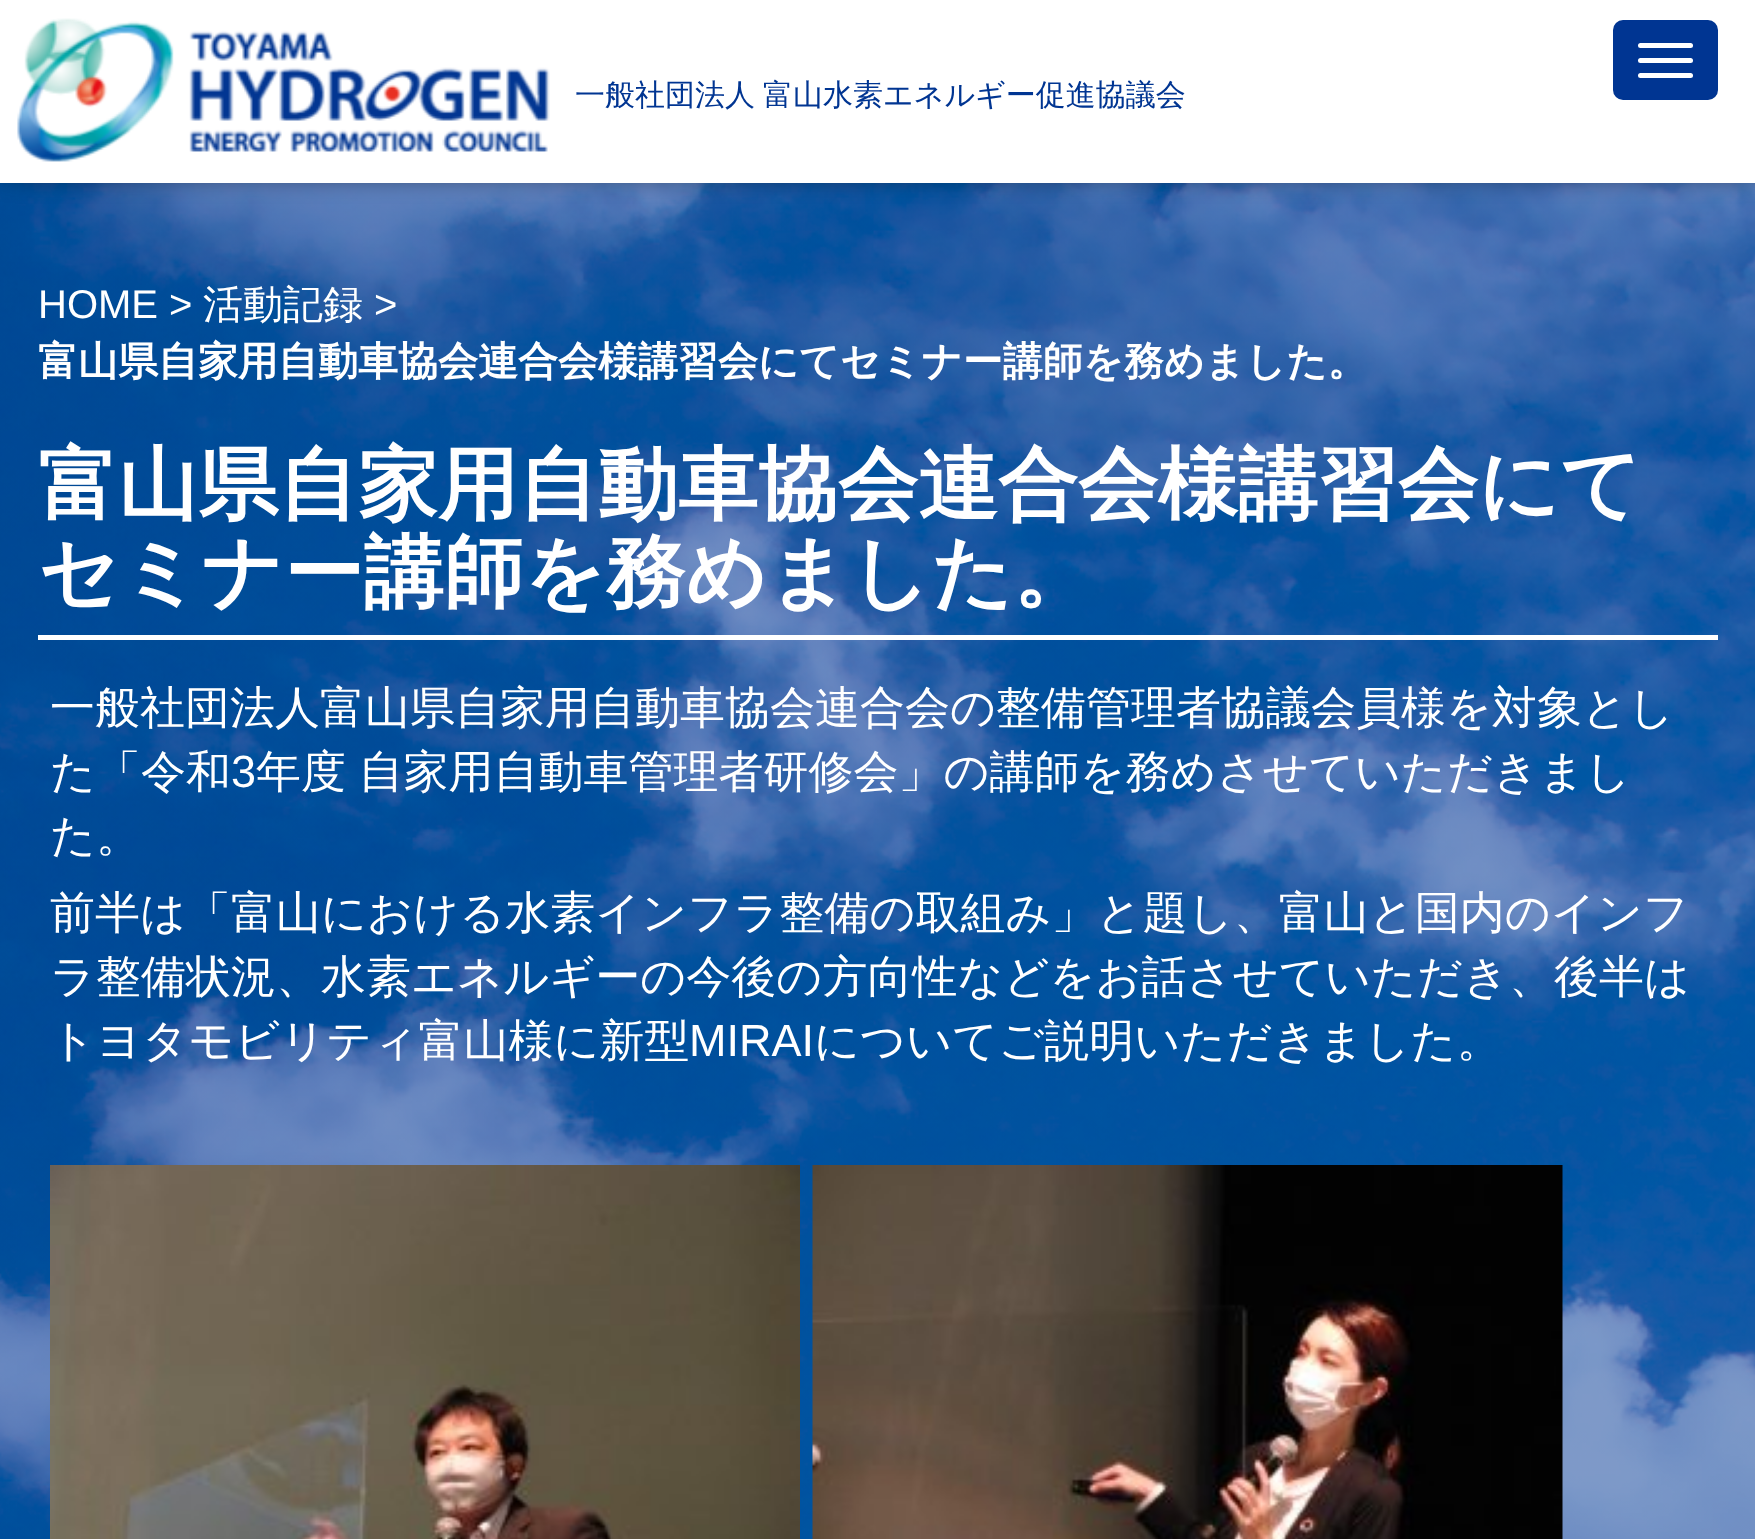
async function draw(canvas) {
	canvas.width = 1755;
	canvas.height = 1539;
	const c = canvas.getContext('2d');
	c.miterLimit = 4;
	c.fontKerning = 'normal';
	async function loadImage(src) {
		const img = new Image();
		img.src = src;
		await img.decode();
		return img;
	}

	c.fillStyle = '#fff';
	c.fillRect(0, 0, 1755, 1539);
	c.drawImage(await loadImage('img2.png'), 0, 183, 1755, 1356);
	c.fillStyle = '#000';
	c.filter = 'blur(15px)';
	c.beginPath();
	c.rect(3, -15, 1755, 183);
	c.fill();
	c.filter = 'none';
	c.fillStyle = '#fff';
	c.fillRect(0, 0, 1755, 183);
	c.drawImage(await loadImage('img1.png'), 17, 18, 533, 144);
	c.wordSpacing = '-1px';
	c.font = '500 30px WenQuanYi Zen Hei';
	c.fillStyle = '#003592';
	c.fillText('一般社団法人 富山水素エネルギー促進協議会', 575, 105);
	c.beginPath();
	c.roundRect(1613, 20, 105, 80, 10);
	c.fill();
	c.fillStyle = '#fff';
	c.beginPath();
	c.roundRect(1638, 43, 55, 5, 2.5);
	c.fill();
	c.beginPath();
	c.roundRect(1638, 58, 55, 5, 2.5);
	c.fill();
	c.beginPath();
	c.roundRect(1638, 73, 55, 5, 2.5);
	c.fill();
	c.wordSpacing = '0px';
	c.font = '40px Liberation Sans';
	c.fillText('HOME >', 38, 318);
	c.font = '500 40px WenQuanYi Zen Hei';
	c.fillText('活動記録', 203, 318);
	c.font = '40px Liberation Sans';
	c.fillText('>', 374, 318);
	c.font = 'bold 40px WenQuanYi Zen Hei';
	c.fillText('富山県自家用自動車協会連合会様講習会にてセミナー講師を務めました。', 38, 375);
	c.fillRect(38, 635, 1680, 5);
	c.font = 'bold 80px WenQuanYi Zen Hei';
	c.fillText('富山県自家用自動車協会連合会様講習会にて', 38, 512);
	c.fillText('セミナー講師を務めました。', 38, 600);
	c.font = '500 45px WenQuanYi Zen Hei';
	c.fillText('一般社団法人富山県自家用自動車協会連合会の整備管理者協議会員様を対象とし', 50, 723);
	c.fillText('た「令和', 50, 787);
	c.font = '45px Liberation Sans';
	c.fillText('3', 231, 787);
	c.wordSpacing = '-1px';
	c.font = '500 45px WenQuanYi Zen Hei';
	c.fillText('年度 自家用自動車管理者研修会」の講師を務めさせていただきまし', 256, 787);
	c.wordSpacing = '0px';
	for (const [text, x, y] of [
		['た。', 50, 851],
		['前半は「富山における水素インフラ整備の取組み」と題し、富山と国内のインフ', 50, 928],
		['ラ整備状況、水素エネルギーの今後の方向性などをお話させていただき、後半は', 50, 992],
		['トヨタモビリティ富山様に新型', 50, 1056],
	]) {
		c.fillText(text, x, y);
	}
	c.font = '45px Liberation Sans';
	c.fillText('MIRAI', 689, 1056);
	c.font = '500 45px WenQuanYi Zen Hei';
	c.fillText('についてご説明いただきました。', 814, 1056);
	c.drawImage(await loadImage('img3.png'), 50, 1165, 750, 374);
	c.drawImage(await loadImage('img4.png'), 812, 1165, 751, 374);
}

draw(document.querySelector('canvas'));
